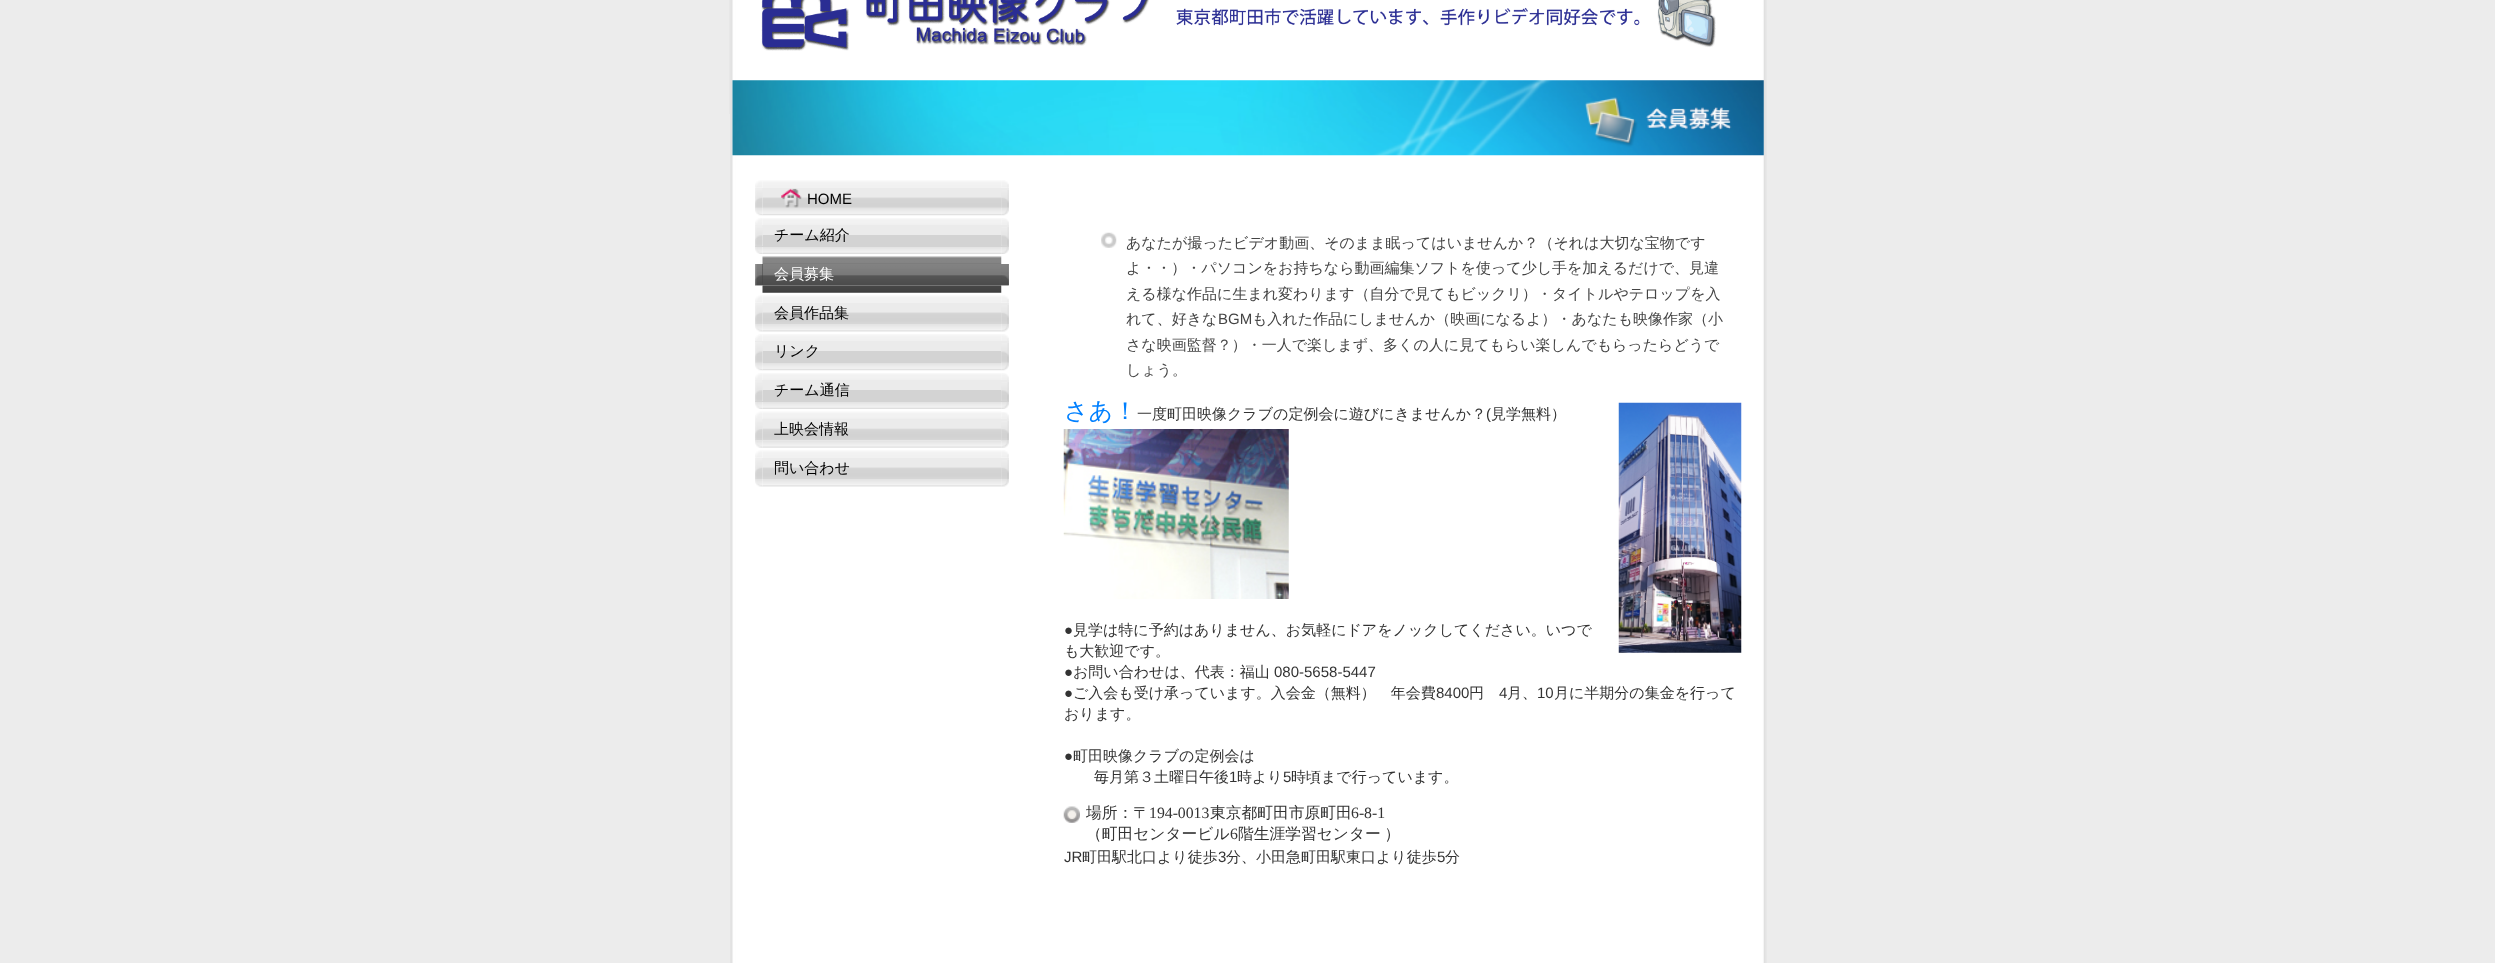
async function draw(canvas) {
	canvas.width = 2495;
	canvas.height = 963;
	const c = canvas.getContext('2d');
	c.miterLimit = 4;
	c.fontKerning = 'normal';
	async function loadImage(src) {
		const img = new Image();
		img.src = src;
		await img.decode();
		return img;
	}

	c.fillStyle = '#ececec';
	c.fillRect(0, 0, 2495, 963);
	c.drawImage(await loadImage('img1.png'), 730, 0, 1037, 963);
	c.fillStyle = '#e7e7e7';
	c.fillRect(729, 0, 1, 114);
	c.drawImage(await loadImage('img2.png'), 761, 0, 955, 51);
	c.drawImage(await loadImage('img3.png'), 732, 80, 1032, 76);
	c.drawImage(await loadImage('img5.png'), 762, 180, 240, 8);
	c.drawImage(await loadImage('img4.png'), 755, 180, 8, 8);
	c.drawImage(await loadImage('img6.png'), 1001, 180, 8, 8);
	c.fillStyle = '#ebebeb';
	c.fillRect(755, 188, 254, 20);
	c.drawImage(await loadImage('img7.png'), 755, 188, 8, 20);
	c.drawImage(await loadImage('img8.png'), 763, 197, 238, 11);
	c.drawImage(await loadImage('img9.png'), 781, 188, 21, 20);
	c.font = '15px Liberation Sans';
	c.fillStyle = '#000';
	c.fillText('HOME', 807, 204);
	c.drawImage(await loadImage('img10.png'), 1001, 190, 8, 18);
	c.drawImage(await loadImage('img12.png'), 762, 208, 240, 8);
	c.drawImage(await loadImage('img11.png'), 755, 208, 8, 8);
	c.drawImage(await loadImage('img13.png'), 1001, 208, 8, 8);
	c.drawImage(await loadImage('img15.png'), 762, 218, 240, 7);
	c.drawImage(await loadImage('img14.png'), 755, 218, 8, 7);
	c.drawImage(await loadImage('img16.png'), 1001, 218, 8, 7);
	c.fillStyle = '#d3d3d3';
	c.fillRect(755, 235, 254, 12);
	c.fillStyle = '#ebebeb';
	c.fillRect(755, 225, 8, 21);
	c.drawImage(await loadImage('img17.png'), 755, 225, 8, 22);
	c.fillRect(763, 225, 238, 10);
	c.font = '500 15px WenQuanYi Zen Hei';
	c.fillStyle = '#000';
	c.fillText('チーム紹介', 774, 240);
	c.fillStyle = '#ebebeb';
	c.fillRect(1001, 225, 8, 21);
	c.drawImage(await loadImage('img18.png'), 1001, 227, 8, 19);
	c.drawImage(await loadImage('img20.png'), 762, 247, 240, 7);
	c.drawImage(await loadImage('img19.png'), 755, 247, 8, 7);
	c.drawImage(await loadImage('img21.png'), 1001, 247, 8, 7);
	c.drawImage(await loadImage('img22.png'), 762, 256, 240, 8);
	c.drawImage(await loadImage('img26.png'), 762, 285, 240, 8);
	c.drawImage(await loadImage('img24.png'), 755, 264, 254, 22);
	c.fillStyle = '#444';
	c.fillRect(762, 264, 1, 21);
	c.drawImage(await loadImage('img23.png'), 755, 264, 8, 22);
	c.fillStyle = '#fff';
	c.fillText('会員募集', 774, 279);
	c.drawImage(await loadImage('img25.png'), 1001, 264, 8, 22);
	c.drawImage(await loadImage('img5.png'), 762, 295, 240, 8);
	c.drawImage(await loadImage('img4.png'), 755, 295, 8, 8);
	c.drawImage(await loadImage('img6.png'), 1001, 295, 8, 8);
	c.fillStyle = '#ebebeb';
	c.fillRect(762, 303, 1, 21);
	c.drawImage(await loadImage('img27.png'), 755, 303, 8, 21);
	c.fillRect(763, 303, 238, 9);
	c.drawImage(await loadImage('img28.png'), 763, 312, 238, 12);
	c.fillStyle = '#000';
	c.fillText('会員作品集', 774, 318);
	c.fillStyle = '#ebebeb';
	c.fillRect(1001, 303, 8, 21);
	c.drawImage(await loadImage('img29.png'), 1001, 305, 8, 19);
	c.drawImage(await loadImage('img31.png'), 762, 324, 240, 8);
	c.drawImage(await loadImage('img30.png'), 755, 324, 8, 8);
	c.drawImage(await loadImage('img32.png'), 1001, 324, 8, 8);
	c.drawImage(await loadImage('img34.png'), 762, 334, 240, 7);
	c.drawImage(await loadImage('img33.png'), 755, 334, 8, 7);
	c.drawImage(await loadImage('img35.png'), 1001, 334, 8, 7);
	c.fillRect(755, 341, 8, 22);
	c.drawImage(await loadImage('img36.png'), 755, 342, 8, 21);
	c.fillRect(763, 341, 238, 10);
	c.fillStyle = '#d3d3d3';
	c.fillRect(763, 351, 238, 12);
	c.fillStyle = '#000';
	c.fillText('リンク', 774, 356);
	c.fillStyle = '#ebebeb';
	c.fillRect(1001, 341, 8, 22);
	c.drawImage(await loadImage('img37.png'), 1001, 343, 8, 20);
	c.drawImage(await loadImage('img12.png'), 762, 363, 240, 8);
	c.drawImage(await loadImage('img11.png'), 755, 363, 8, 8);
	c.drawImage(await loadImage('img13.png'), 1001, 363, 8, 8);
	c.drawImage(await loadImage('img15.png'), 762, 373, 240, 7);
	c.drawImage(await loadImage('img14.png'), 755, 373, 8, 7);
	c.drawImage(await loadImage('img16.png'), 1001, 373, 8, 7);
	c.fillStyle = '#d3d3d3';
	c.fillRect(755, 390, 254, 12);
	c.fillStyle = '#ebebeb';
	c.fillRect(755, 380, 8, 21);
	c.drawImage(await loadImage('img17.png'), 755, 380, 8, 22);
	c.fillRect(763, 380, 238, 10);
	c.fillStyle = '#000';
	c.fillText('チーム通信', 774, 395);
	c.fillStyle = '#ebebeb';
	c.fillRect(1001, 380, 8, 21);
	c.drawImage(await loadImage('img18.png'), 1001, 382, 8, 19);
	c.drawImage(await loadImage('img20.png'), 762, 402, 240, 7);
	c.drawImage(await loadImage('img19.png'), 755, 402, 8, 7);
	c.drawImage(await loadImage('img21.png'), 1001, 402, 8, 7);
	c.drawImage(await loadImage('img39.png'), 762, 411, 240, 8);
	c.drawImage(await loadImage('img38.png'), 755, 411, 8, 8);
	c.drawImage(await loadImage('img40.png'), 1001, 412, 8, 7);
	c.drawImage(await loadImage('img45.png'), 762, 440, 240, 8);
	c.drawImage(await loadImage('img44.png'), 755, 440, 8, 8);
	c.drawImage(await loadImage('img46.png'), 1001, 440, 8, 8);
	c.drawImage(await loadImage('img42.png'), 755, 428, 254, 13);
	c.fillRect(762, 419, 1, 21);
	c.drawImage(await loadImage('img41.png'), 755, 419, 8, 21);
	c.fillRect(763, 419, 238, 9);
	c.fillStyle = '#000';
	c.fillText('上映会情報', 774, 434);
	c.fillStyle = '#ebebeb';
	c.fillRect(1001, 419, 8, 21);
	c.drawImage(await loadImage('img43.png'), 1001, 421, 8, 20);
	c.drawImage(await loadImage('img5.png'), 762, 450, 240, 8);
	c.drawImage(await loadImage('img47.png'), 755, 450, 8, 8);
	c.drawImage(await loadImage('img48.png'), 1001, 450, 8, 8);
	c.fillRect(762, 458, 1, 21);
	c.drawImage(await loadImage('img27.png'), 755, 458, 8, 21);
	c.fillRect(763, 458, 238, 9);
	c.drawImage(await loadImage('img28.png'), 763, 467, 238, 12);
	c.fillStyle = '#000';
	c.fillText('問い合わせ', 774, 473);
	c.fillStyle = '#ebebeb';
	c.fillRect(1001, 458, 8, 21);
	c.drawImage(await loadImage('img29.png'), 1001, 460, 8, 19);
	c.drawImage(await loadImage('img31.png'), 762, 479, 240, 8);
	c.drawImage(await loadImage('img30.png'), 755, 479, 8, 8);
	c.drawImage(await loadImage('img32.png'), 1001, 479, 8, 8);
	c.drawImage(await loadImage('img49.png'), 1101, 232, 16, 16);
	c.fillStyle = '#444';
	for (const [text, x, y] of [
		['あなたが撮ったビデオ動画、そのまま眠ってはいませんか？（それは大切な宝物です', 1126, 248],
		['よ・・）・パソコンをお持ちなら動画編集ソフトを使って少し手を加えるだけで、見違', 1126, 273],
		['える様な作品に生まれ変わります（自分で見てもビックリ）・タイトルやテロップを入', 1126, 299],
		['れて、好きな', 1126, 324],
	]) {
		c.fillText(text, x, y);
	}
	c.font = '15px Liberation Sans';
	c.fillText('BGM', 1218, 324);
	c.font = '500 15px WenQuanYi Zen Hei';
	for (const [text, x, y] of [
		['も入れた作品にしませんか（映画になるよ）・あなたも映像作家（小', 1252, 324],
		['さな映画監督？）・一人で楽しまず、多くの人に見てもらい楽しんでもらったらどうで', 1126, 350],
		['しょう。', 1126, 375],
	]) {
		c.fillText(text, x, y);
	}
	c.font = '500 24px WenQuanYi Zen Hei';
	c.fillStyle = '#0080ff';
	c.fillText('さあ！', 1064, 419);
	c.font = '500 15px WenQuanYi Zen Hei';
	c.fillStyle = '#333';
	c.fillText('一度町田映像クラブの定例会に遊びにきませんか？', 1137, 419);
	c.font = '15px Liberation Sans';
	c.fillText('(', 1486, 419);
	c.font = '500 15px WenQuanYi Zen Hei';
	c.fillText('見学無料）', 1491, 419);
	c.drawImage(await loadImage('img50.png'), 1618, 402, 124, 251);
	c.drawImage(await loadImage('img51.png'), 1063, 429, 226, 170);
	c.font = '15px Liberation Sans';
	c.fillText('●', 1064, 635);
	c.font = '500 15px WenQuanYi Zen Hei';
	c.fillText('見学は特に予約はありません、お気軽にドアをノックしてください。いつで', 1073, 635);
	c.fillText('も大歓迎です。', 1064, 656);
	c.font = '15px Liberation Sans';
	c.fillText('●', 1064, 677);
	c.font = '500 15px WenQuanYi Zen Hei';
	c.fillText('お問い合わせは、代表：福山', 1073, 677);
	c.font = '15px Liberation Sans';
	c.fillText('080-5658-5447', 1274, 677);
	c.fillText('●', 1064, 698);
	c.font = '500 15px WenQuanYi Zen Hei';
	c.fillText('ご入会も受け承っています。入会金（無料）　年会費', 1073, 698);
	c.font = '15px Liberation Sans';
	c.fillText('8400', 1436, 698);
	c.font = '500 15px WenQuanYi Zen Hei';
	c.fillText('円', 1469, 698);
	c.font = '15px Liberation Sans';
	c.fillText('4', 1499, 698);
	c.font = '500 15px WenQuanYi Zen Hei';
	c.fillText('月、', 1507, 698);
	c.font = '15px Liberation Sans';
	c.fillText('10', 1537, 698);
	c.font = '500 15px WenQuanYi Zen Hei';
	c.fillText('月に半期分の集金を行って', 1554, 698);
	c.fillText('おります。', 1064, 719);
	c.font = '15px Liberation Sans';
	c.fillText('●', 1064, 761);
	c.font = '500 15px WenQuanYi Zen Hei';
	c.fillText('町田映像クラブの定例会は', 1073, 761);
	c.fillText('毎月第３土曜日午後', 1094, 782);
	c.font = '15px Liberation Sans';
	c.fillText('1', 1229, 782);
	c.font = '500 15px WenQuanYi Zen Hei';
	c.fillText('時より', 1237, 782);
	c.font = '15px Liberation Sans';
	c.fillText('5', 1283, 782);
	c.font = '500 15px WenQuanYi Zen Hei';
	c.fillText('時頃まで行っています。', 1291, 782);
	c.drawImage(await loadImage('img52.png'), 1063, 806, 17, 17);
	c.font = '500 15.75px WenQuanYi Zen Hei';
	c.fillText('場所：〒', 1086, 818);
	c.font = '15.75px Liberation Serif';
	c.fillText('194-0013', 1149, 818);
	c.font = '500 15.75px WenQuanYi Zen Hei';
	c.fillText('東京都町田市原町田', 1210, 818);
	c.font = '15.75px Liberation Serif';
	c.fillText('6-8-1', 1351, 818);
	c.font = '500 15.75px WenQuanYi Zen Hei';
	c.fillText('（町田センタービル', 1086, 839);
	c.font = '15.75px Liberation Serif';
	c.fillText('6', 1230, 839);
	c.wordSpacing = '-1px';
	c.font = '500 15.75px WenQuanYi Zen Hei';
	c.fillText('階生涯学習センター ）', 1238, 839);
	c.wordSpacing = '0px';
	c.font = '15px Liberation Sans';
	c.fillText('JR', 1064, 862);
	c.font = '500 15px WenQuanYi Zen Hei';
	c.fillText('町田駅北口より徒歩', 1082, 862);
	c.font = '15px Liberation Sans';
	c.fillText('3', 1218, 862);
	c.font = '500 15px WenQuanYi Zen Hei';
	c.fillText('分、小田急町田駅東口より徒歩', 1226, 862);
	c.font = '15px Liberation Sans';
	c.fillText('5', 1437, 862);
	c.font = '500 15px WenQuanYi Zen Hei';
	c.fillText('分', 1445, 862);
}

draw(document.querySelector('canvas'));
